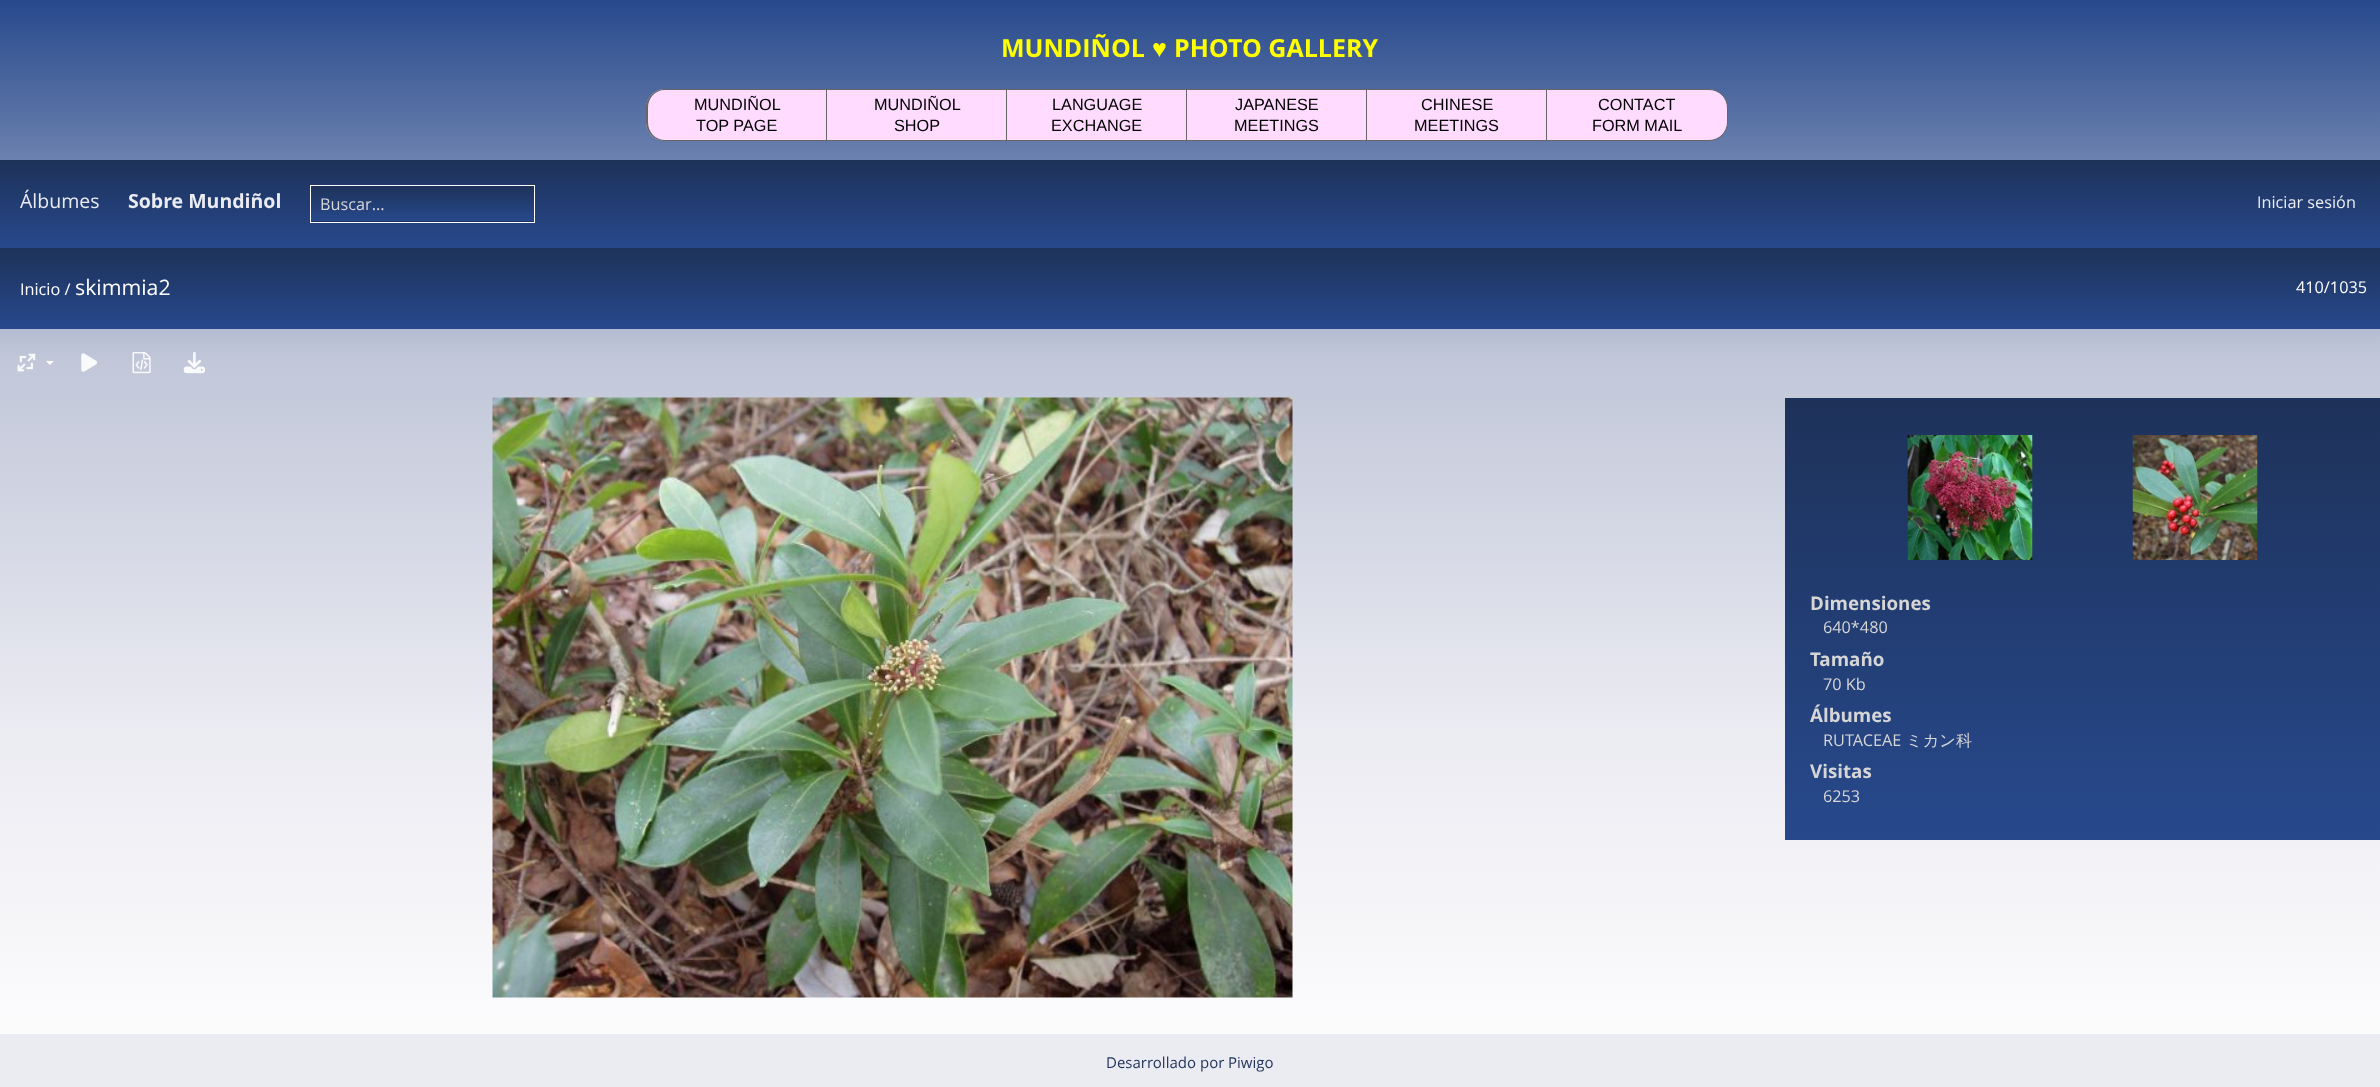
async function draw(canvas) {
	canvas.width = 2380;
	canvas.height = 1087;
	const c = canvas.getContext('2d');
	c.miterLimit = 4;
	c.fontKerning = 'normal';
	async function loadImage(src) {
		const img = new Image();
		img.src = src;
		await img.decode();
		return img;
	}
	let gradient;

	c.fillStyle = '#fff';
	c.fillRect(0, 0, 2380, 1087);
	gradient = c.createLinearGradient(1190, 0, 1190, 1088);
	gradient.addColorStop(0, '#27498c');
	gradient.addColorStop(0.33, '#c1c7d9');
	gradient.addColorStop(0.67, '#ebebf2');
	gradient.addColorStop(1, '#fff');
	c.fillStyle = gradient;
	c.fillRect(0, 0, 2380, 1034);
	c.font = 'bold 25px Open Sans';
	c.fillStyle = '#ff0';
	c.fillText('MUNDIÑOL', 1001, 57);
	c.font = 'bold 25px Liberation Sans';
	c.fillText('♥', 1152, 57);
	c.font = 'bold 25px Open Sans';
	c.fillText('PHOTO GALLERY', 1174, 57);
	c.fillStyle = '#ffdbff';
	c.beginPath();
	c.roundRect(646, 89, 180, 52, [19, 0, 0, 19]);
	c.fill();
	c.fillStyle = '#666';
	c.beginPath();
	c.moveTo(665, 89);
	c.lineTo(826, 89);
	c.lineTo(826, 141);
	c.lineTo(665, 141);
	c.bezierCurveTo(655, 141, 646, 133, 646, 122);
	c.lineTo(646, 108);
	c.bezierCurveTo(646, 97, 655, 89, 665, 89);
	c.closePath();
	c.moveTo(665, 90);
	c.lineTo(826, 90);
	c.lineTo(826, 140);
	c.lineTo(665, 140);
	c.bezierCurveTo(655, 140, 648, 132, 648, 122);
	c.lineTo(648, 108);
	c.bezierCurveTo(648, 98, 655, 90, 665, 90);
	c.closePath();
	c.fill('evenodd');
	c.font = '16.25px Liberation Sans';
	c.fillStyle = '#000';
	c.fillText('MUNDIÑOL', 694, 110);
	c.fillText('TOP PAGE', 696, 131);
	for (const [x, y, w, h, color] of [
		[827, 90, 179, 50, '#ffdbff'],
		[826, 89, 720, 1, '#666'],
		[826, 140, 720, 1, '#666'],
		[826, 89, 1, 52, '#666'],
	]) {
		c.fillStyle = color;
		c.fillRect(x, y, w, h);
	}
	c.fillStyle = '#000';
	c.fillText('MUNDIÑOL', 874, 110);
	c.fillText('SHOP', 894, 131);
	c.fillStyle = '#ffdbff';
	c.fillRect(1007, 90, 179, 50);
	c.fillStyle = '#666';
	c.fillRect(1006, 89, 1, 52);
	c.fillStyle = '#000';
	c.fillText('LANGUAGE', 1052, 110);
	c.fillText('EXCHANGE', 1051, 131);
	c.fillStyle = '#ffdbff';
	c.fillRect(1187, 90, 179, 50);
	c.fillStyle = '#666';
	c.fillRect(1186, 89, 1, 52);
	c.fillStyle = '#000';
	c.fillText('JAPANESE', 1235, 110);
	c.fillText('MEETINGS', 1234, 131);
	c.fillStyle = '#ffdbff';
	c.fillRect(1367, 90, 179, 50);
	c.fillStyle = '#666';
	c.fillRect(1366, 89, 1, 52);
	c.fillStyle = '#000';
	c.fillText('CHINESE', 1421, 110);
	c.fillText('MEETINGS', 1414, 131);
	c.fillStyle = '#ffdbff';
	c.beginPath();
	c.roundRect(1546.5, 89.5, 181, 51, [0, 18.5, 18.5, 0]);
	c.fill();
	c.strokeStyle = '#666';
	c.stroke();
	c.fillStyle = '#000';
	c.fillText('CONTACT', 1598, 110);
	c.fillText('FORM MAIL', 1592, 131);
	gradient = c.createLinearGradient(1190, 160, 1190, 248);
	gradient.addColorStop(0, '#1e3259');
	gradient.addColorStop(0.5, '#223d73');
	gradient.addColorStop(1, '#27498c');
	c.fillStyle = gradient;
	c.fillRect(0, 160, 2380, 88);
	c.font = '19.5px Open Sans';
	c.fillStyle = '#ebebf2';
	c.fillText('Álbumes', 20, 208);
	c.font = 'bold 19.5px Open Sans';
	c.fillText('Sobre Mundiñol', 128, 208);
	gradient = c.createLinearGradient(423, 186, 423, 221);
	gradient.addColorStop(0, '#1e3259');
	gradient.addColorStop(0.5, '#223d73');
	gradient.addColorStop(1, '#27498c');
	c.fillStyle = gradient;
	c.fillRect(311, 186, 223, 35);
	gradient = c.createLinearGradient(423, 221, 423, 256);
	gradient.addColorStop(0, '#1e3259');
	gradient.addColorStop(0.5, '#223d73');
	gradient.addColorStop(1, '#27498c');
	c.fillStyle = gradient;
	c.fillRect(310, 221, 225, 1);
	c.strokeStyle = '#fff';
	c.strokeRect(310.5, 185.5, 224, 37);
	c.font = '16.25px Open Sans';
	c.fillStyle = '#d6d6d6';
	c.fillText('Buscar...', 320, 210);
	c.fillStyle = '#ebebf2';
	c.fillText('Iniciar sesión', 2257, 208);
	gradient = c.createLinearGradient(1190, 247, 1190, 329);
	gradient.addColorStop(0, '#1e3259');
	gradient.addColorStop(0.5, '#223d73');
	gradient.addColorStop(1, '#27498c');
	c.fillStyle = gradient;
	c.fillRect(0, 248, 2380, 81);
	c.fillStyle = '#fff';
	c.fillText('Inicio /', 20, 295);
	c.font = '21.25px Open Sans';
	c.fillText('skimmia2', 75, 295);
	c.font = '16.25px Open Sans';
	c.fillText('410/1035', 2296, 293);
	c.drawImage(await loadImage('img1.png'), 17, 353, 19, 19);
	c.beginPath();
	c.moveTo(46, 361);
	c.lineTo(54, 361);
	c.lineTo(50, 365);
	c.closePath();
	c.fill();
	c.drawImage(await loadImage('img2.png'), 81, 353, 17, 19);
	c.drawImage(await loadImage('img3.png'), 132, 352, 19, 22);
	c.drawImage(await loadImage('img4.png'), 183, 352, 22, 22);
	c.drawImage(await loadImage('img5.png'), 492, 397, 801, 601);
	gradient = c.createLinearGradient(2083, 398, 2083, 840);
	gradient.addColorStop(0, '#1e3259');
	gradient.addColorStop(0.5, '#223d73');
	gradient.addColorStop(1, '#27498c');
	c.fillStyle = gradient;
	c.fillRect(1785, 398, 595, 442);
	c.drawImage(await loadImage('img6.png'), 1907, 435, 126, 125);
	c.drawImage(await loadImage('img7.png'), 2132, 435, 126, 125);
	c.font = 'bold 18.75px Open Sans';
	c.fillStyle = '#d6d6d6';
	c.fillText('Dimensiones', 1810, 610);
	c.font = '16.25px Open Sans';
	c.fillText('640*480', 1823, 633);
	c.font = 'bold 18.75px Open Sans';
	c.fillText('Tamaño', 1810, 666);
	c.font = '16.25px Open Sans';
	c.fillText('70 Kb', 1823, 690);
	c.font = 'bold 18.75px Open Sans';
	c.fillText('Álbumes', 1810, 722);
	c.font = '16.25px Open Sans';
	c.fillText('RUTACEAE', 1823, 746);
	c.font = '500 16.25px WenQuanYi Zen Hei';
	c.fillText('ミカン科', 1906, 746);
	c.font = 'bold 18.75px Open Sans';
	c.fillText('Visitas', 1810, 778);
	c.font = '16.25px Open Sans';
	c.fillText('6253', 1823, 802);
	c.fillStyle = '#ebebf2';
	c.fillRect(0, 1034, 2380, 53);
	c.font = '15px Open Sans';
	c.fillStyle = '#1e3259';
	c.fillText('Desarrollado por', 1106, 1068);
	c.fillText('Piwigo', 1228, 1068);
}

draw(document.querySelector('canvas'));
